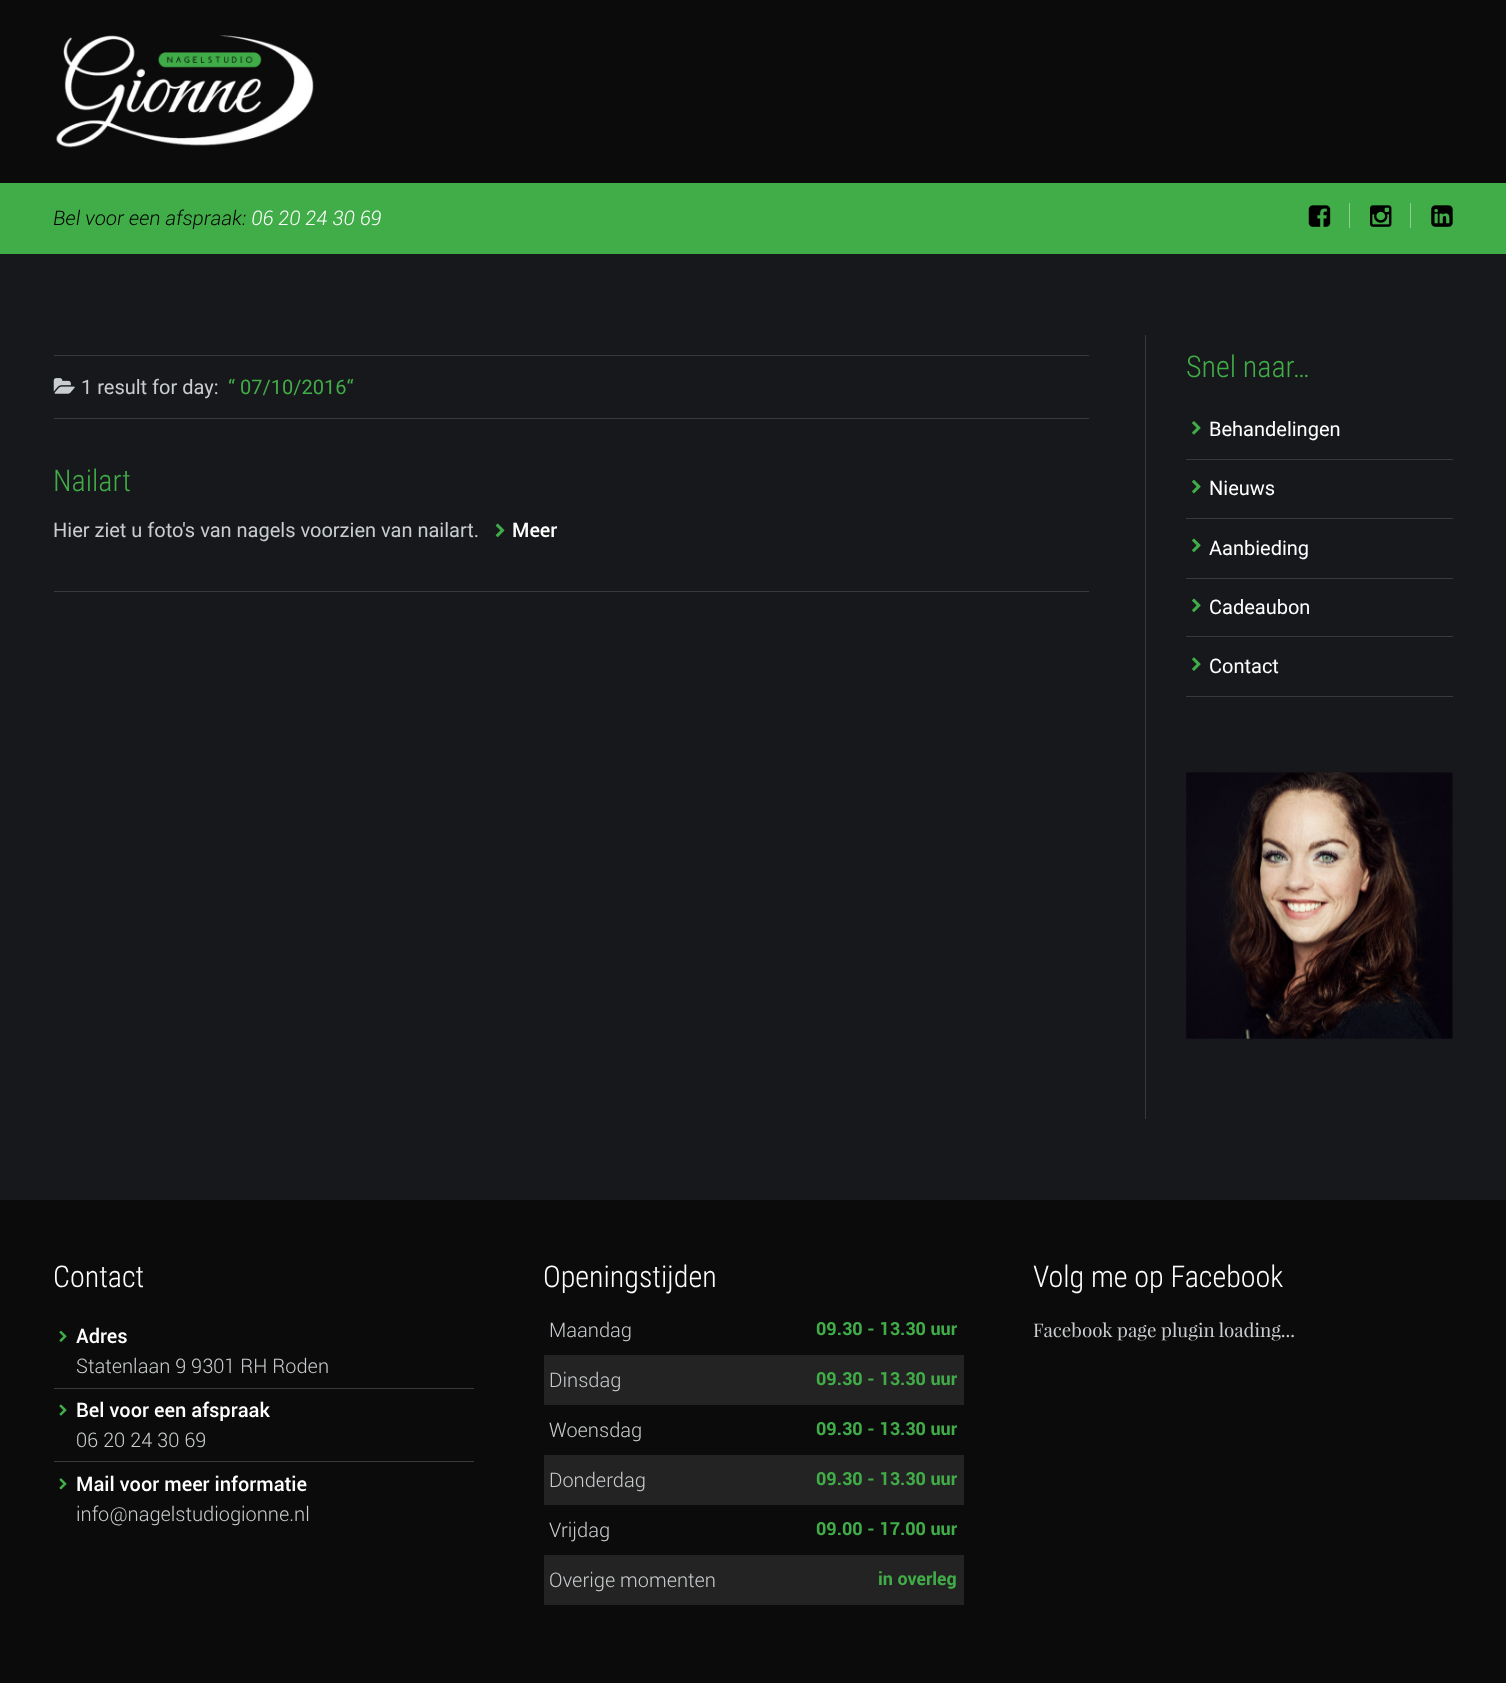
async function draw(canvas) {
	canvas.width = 1506;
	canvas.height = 1683;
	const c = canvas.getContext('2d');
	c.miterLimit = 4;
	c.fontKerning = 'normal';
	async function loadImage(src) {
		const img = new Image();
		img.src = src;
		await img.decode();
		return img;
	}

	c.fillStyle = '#17181b';
	c.fillRect(0, 0, 1506, 1683);
	c.fillStyle = '#0b0b0b';
	c.fillRect(0, 0, 1506, 183);
	c.drawImage(await loadImage('img1.png'), 56, 35, 258, 113);
	c.fillStyle = '#41ad48';
	c.fillRect(0, 183, 1506, 71);
	c.font = 'italic 300 20px Roboto';
	c.fillStyle = '#000';
	c.fillText('Bel voor een afspraak:', 53, 225);
	c.fillStyle = '#fff';
	c.fillText('06 20 24 30 69', 251, 225);
	c.drawImage(await loadImage('img2.png'), 1308, 205, 23, 22);
	c.fillStyle = '#8dce91';
	c.fillRect(1349, 203, 1, 25);
	c.drawImage(await loadImage('img3.png'), 1370, 205, 22, 22);
	c.fillRect(1410, 203, 1, 25);
	c.drawImage(await loadImage('img4.png'), 1431, 205, 22, 22);
	c.fillStyle = '#38393d';
	c.fillRect(54, 355, 1035, 1);
	c.fillRect(54, 418, 1035, 1);
	c.drawImage(await loadImage('img5.png'), 53, 378, 22, 16);
	c.font = '20px Roboto';
	c.fillStyle = '#cacdcf';
	c.fillText('1 result for day:', 81, 394);
	c.fillStyle = '#41ad48';
	c.fillText('“', 228, 394);
	c.fillText('07/10/2016“', 240, 394);
	c.font = '300 30px Roboto Condensed';
	c.fillText('Nailart', 53, 491);
	c.font = '20px Roboto';
	c.fillStyle = '#cacdcf';
	c.fillText('Hier ziet u foto\'s van nagels voorzien van nailart.', 53, 537);
	c.drawImage(await loadImage('img6.png'), 495, 523, 10, 14);
	c.font = '500 20px Roboto';
	c.fillStyle = '#fff';
	c.fillText('Meer', 512, 537);
	c.fillStyle = '#38393d';
	c.fillRect(54, 591, 1035, 1);
	c.fillRect(1145, 335, 1, 784);
	c.font = '300 30px Roboto Condensed';
	c.fillStyle = '#41ad48';
	c.fillText('Snel naar…', 1186, 377);
	c.fillStyle = '#38393d';
	c.fillRect(1186, 459, 267, 1);
	c.drawImage(await loadImage('img7.png'), 1192, 421, 9, 14);
	c.font = '20px Roboto';
	c.fillStyle = '#fff';
	c.fillText('Behandelingen', 1209, 436);
	c.fillStyle = '#38393d';
	c.fillRect(1186, 518, 267, 1);
	c.drawImage(await loadImage('img8.png'), 1192, 479, 9, 15);
	c.fillStyle = '#fff';
	c.fillText('Nieuws', 1209, 495);
	c.fillStyle = '#38393d';
	c.fillRect(1186, 578, 267, 1);
	c.drawImage(await loadImage('img9.png'), 1192, 538, 9, 14);
	c.fillStyle = '#fff';
	c.fillText('Aanbieding', 1209, 555);
	c.fillStyle = '#38393d';
	c.fillRect(1186, 636, 267, 1);
	c.drawImage(await loadImage('img9.png'), 1192, 598, 9, 14);
	c.fillStyle = '#fff';
	c.fillText('Cadeaubon', 1209, 614);
	c.fillStyle = '#38393d';
	c.fillRect(1186, 696, 267, 1);
	c.drawImage(await loadImage('img10.png'), 1192, 657, 9, 14);
	c.fillStyle = '#fff';
	c.fillText('Contact', 1209, 673);
	c.drawImage(await loadImage('img11.png'), 1186, 772, 267, 267);
	c.fillStyle = '#0b0b0b';
	c.fillRect(0, 1200, 1506, 483);
	c.font = '300 30px Roboto Condensed';
	c.fillStyle = '#fff';
	c.fillText('Contact', 53, 1287);
	c.fillStyle = '#38393d';
	c.fillRect(54, 1388, 420, 1);
	c.drawImage(await loadImage('img12.png'), 59, 1330, 8, 12);
	c.font = '500 20px Roboto';
	c.fillStyle = '#fff';
	c.fillText('Adres', 76, 1343);
	c.font = '300 20px Roboto';
	c.fillStyle = '#cacdcf';
	c.fillText('Statenlaan 9 9301 RH Roden', 76, 1373);
	c.fillStyle = '#38393d';
	c.fillRect(54, 1461, 420, 1);
	c.drawImage(await loadImage('img13.png'), 59, 1404, 8, 12);
	c.font = '500 20px Roboto';
	c.fillStyle = '#fff';
	c.fillText('Bel voor een afspraak', 76, 1417);
	c.font = '300 20px Roboto';
	c.fillStyle = '#cacdcf';
	c.fillText('06 20 24 30 69', 76, 1447);
	c.drawImage(await loadImage('img14.png'), 59, 1478, 8, 12);
	c.font = '500 20px Roboto';
	c.fillStyle = '#fff';
	c.fillText('Mail voor meer informatie', 76, 1491);
	c.font = '300 20px Roboto';
	c.fillStyle = '#cacdcf';
	c.fillText('info@nagelstudiogionne.nl', 76, 1521);
	c.font = '300 30px Roboto Condensed';
	c.fillStyle = '#fff';
	c.fillText('Openingstijden', 543, 1287);
	c.font = '300 20px Roboto';
	c.fillStyle = '#cacdcf';
	c.fillText('Maandag', 549, 1337);
	c.font = 'bold 18px Roboto';
	c.fillStyle = '#41ad48';
	c.fillText('09.30 - 13.30 uur', 816, 1335);
	c.fillStyle = '#232323';
	c.fillRect(544, 1355, 420, 50);
	c.font = '300 20px Roboto';
	c.fillStyle = '#cacdcf';
	c.fillText('Dinsdag', 549, 1387);
	c.font = 'bold 18px Roboto';
	c.fillStyle = '#41ad48';
	c.fillText('09.30 - 13.30 uur', 816, 1385);
	c.font = '300 20px Roboto';
	c.fillStyle = '#cacdcf';
	c.fillText('Woensdag', 549, 1437);
	c.font = 'bold 18px Roboto';
	c.fillStyle = '#41ad48';
	c.fillText('09.30 - 13.30 uur', 816, 1435);
	c.fillStyle = '#232323';
	c.fillRect(544, 1455, 420, 50);
	c.font = '300 20px Roboto';
	c.fillStyle = '#cacdcf';
	c.fillText('Donderdag', 549, 1487);
	c.font = 'bold 18px Roboto';
	c.fillStyle = '#41ad48';
	c.fillText('09.30 - 13.30 uur', 816, 1485);
	c.font = '300 20px Roboto';
	c.fillStyle = '#cacdcf';
	c.fillText('Vrijdag', 549, 1537);
	c.font = 'bold 18px Roboto';
	c.fillStyle = '#41ad48';
	c.fillText('09.00 - 17.00 uur', 816, 1535);
	c.fillStyle = '#232323';
	c.fillRect(544, 1555, 420, 50);
	c.font = '300 20px Roboto';
	c.fillStyle = '#cacdcf';
	c.fillText('Overige momenten', 549, 1587);
	c.font = 'bold 18px Roboto';
	c.fillStyle = '#41ad48';
	c.fillText('in overleg', 878, 1585);
	c.font = '300 30px Roboto Condensed';
	c.fillStyle = '#fff';
	c.fillText('Volg me op Facebook', 1033, 1287);
	c.font = '18.75px Playfair Display';
	c.fillStyle = '#cacdcf';
	c.fillText('Facebook page plugin loading...', 1033, 1337);
}

draw(document.querySelector('canvas'));
